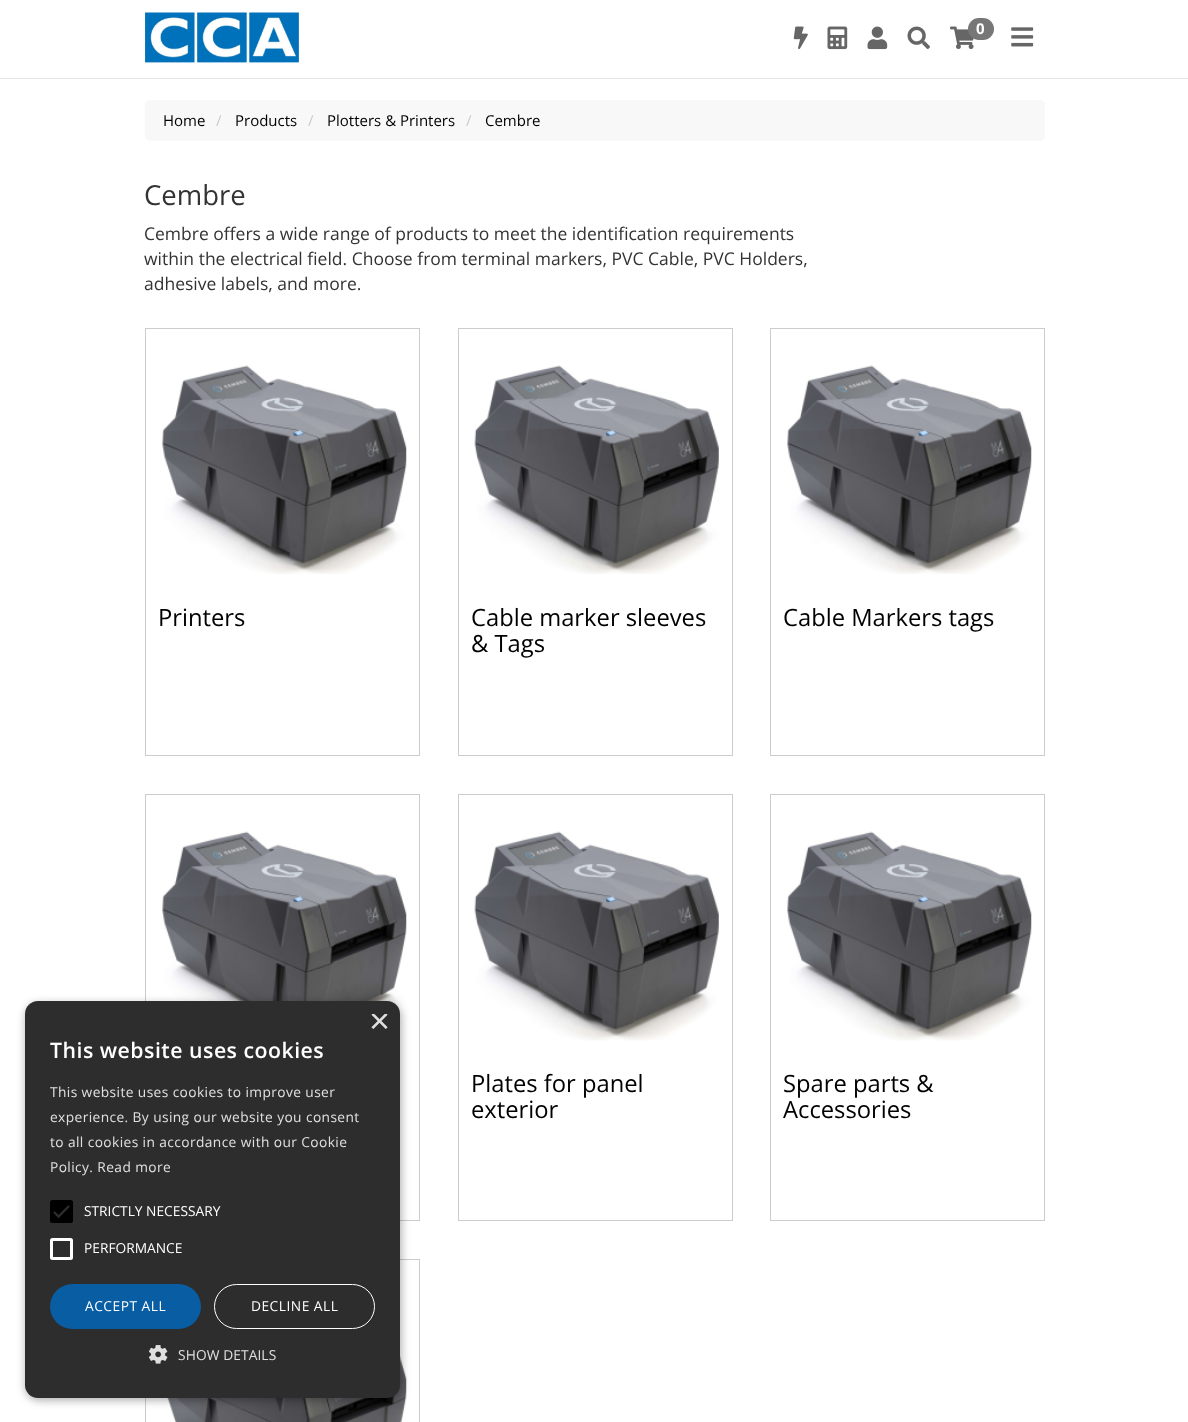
async function draw(canvas) {
	canvas.width = 1188;
	canvas.height = 1422;
	const c = canvas.getContext('2d');
	c.miterLimit = 4;
	c.fontKerning = 'normal';
	async function loadImage(src) {
		const img = new Image();
		img.src = src;
		await img.decode();
		return img;
	}

	c.fillStyle = '#fff';
	c.fillRect(0, 0, 1188, 1422);
	c.fillStyle = '#e7e7e7';
	c.fillRect(0, 78, 1188, 1);
	c.drawImage(await loadImage('img1.png'), 145, 12, 154, 51);
	c.drawImage(await loadImage('img2.png'), 793, 26, 15, 23);
	c.drawImage(await loadImage('img3.png'), 827, 26, 21, 24);
	c.drawImage(await loadImage('img4.png'), 867, 26, 21, 24);
	c.drawImage(await loadImage('img5.png'), 907, 26, 23, 23);
	c.drawImage(await loadImage('img6.png'), 950, 26, 24, 23);
	c.fillStyle = '#777';
	c.beginPath();
	c.roundRect(968, 18, 26, 22, 11);
	c.fill();
	c.font = 'bold 15px Open Sans';
	c.fillStyle = '#fff';
	c.fillText('0', 976, 34);
	c.drawImage(await loadImage('img7.png'), 1011, 27, 23, 20);
	c.fillStyle = '#f8f8f8';
	c.beginPath();
	c.roundRect(145, 100, 900, 41, 5);
	c.fill();
	c.font = '15px Open Sans';
	c.fillStyle = '#000';
	c.fillText('Home', 163, 126);
	c.fillStyle = '#ccc';
	c.fillText('/', 216, 126);
	c.fillStyle = '#000';
	c.fillText('Products', 235, 126);
	c.fillStyle = '#ccc';
	c.fillText('/', 308, 126);
	c.fillStyle = '#000';
	c.fillText('Plotters & Printers', 327, 126);
	c.fillStyle = '#ccc';
	c.fillText('/', 466, 126);
	c.fillStyle = '#000';
	c.fillText('Cembre', 485, 126);
	c.font = '27.5px Open Sans';
	c.fillStyle = '#333';
	c.fillText('Cembre', 144, 205);
	c.font = '17.5px Open Sans';
	for (const [text, x, y] of [
		['Cembre offers a wide range of products to meet the identification requirements', 144, 240],
		['within the electrical field. Choose from terminal markers, PVC Cable, PVC Holders,', 144, 265],
		['adhesive labels, and more.', 144, 290],
	]) {
		c.fillText(text, x, y);
	}
	c.strokeStyle = '#ccc';
	c.strokeRect(145.5, 328.5, 274, 427);
	c.drawImage(await loadImage('img8.png'), 162, 365, 245, 209);
	c.font = '23.75px Open Sans';
	c.fillStyle = '#000';
	c.fillText('Printers', 158, 626);
	c.strokeRect(458.5, 328.5, 274, 427);
	c.drawImage(await loadImage('img9.png'), 474, 365, 245, 209);
	c.fillText('Cable marker sleeves', 471, 626);
	c.fillText('& Tags', 471, 652);
	c.strokeRect(770.5, 328.5, 274, 427);
	c.drawImage(await loadImage('img10.png'), 787, 365, 245, 209);
	c.fillText('Cable Markers tags', 783, 626);
	c.strokeRect(145.5, 794.5, 274, 426);
	c.drawImage(await loadImage('img11.png'), 162, 831, 245, 210);
	c.strokeRect(458.5, 794.5, 274, 426);
	c.drawImage(await loadImage('img12.png'), 474, 831, 245, 210);
	c.fillText('Plates for panel', 471, 1092);
	c.fillText('exterior', 471, 1118);
	c.strokeRect(770.5, 794.5, 274, 426);
	c.drawImage(await loadImage('img13.png'), 787, 831, 245, 210);
	c.fillText('Spare parts &', 783, 1092);
	c.fillText('Accessories', 783, 1118);
	c.strokeRect(145.5, 1259.5, 274, 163);
	c.drawImage(await loadImage('img14.png'), 162, 1296, 245, 126);
	c.fillStyle = '#00000059';
	c.filter = 'blur(5px)';
	c.beginPath();
	c.roundRect(26, 1004, 375, 396, 13);
	c.fill();
	c.filter = 'none';
	c.fillStyle = '#2d2d2d';
	c.beginPath();
	c.roundRect(25, 1001, 375, 397, 13);
	c.fill();
	c.save();
	c.beginPath();
	c.rect(369, 1014, 19, 19);
	c.clip();
	c.font = '36px Liberation Sans';
	c.fillStyle = '#e0e0e0';
	c.fillText('×', 369, 1033);
	c.restore();
	c.letterSpacing = '0.5px';
	c.font = '600 21.25px Open Sans';
	c.fillStyle = '#fff';
	c.fillText('This website uses cookies', 50, 1058);
	c.letterSpacing = '0.4px';
	c.font = '13.75px Open Sans';
	c.fillStyle = '#e0e0e0';
	for (const [text, x, y] of [
		['This website uses cookies to improve user', 50, 1097],
		['experience. By using our website you consent', 50, 1122],
		['to all cookies in accordance with our Cookie', 50, 1147],
		['Policy. Read more', 50, 1172],
	]) {
		c.fillText(text, x, y);
	}
	c.fillStyle = '#000';
	c.beginPath();
	c.roundRect(50, 1200, 23, 23, 2.5);
	c.fill();
	c.beginPath();
	c.moveTo(54, 1212);
	c.lineTo(58.5, 1216.5);
	c.lineTo(69, 1206);
	c.strokeStyle = '#2d2d2d';
	c.lineWidth = 2.3;
	c.stroke();
	c.letterSpacing = '0px';
	c.fillStyle = '#fff';
	c.fillText('STRICTLY NECESSARY', 84, 1216);
	c.beginPath();
	c.roundRect(51.5, 1239.5, 20, 19, 1);
	c.strokeStyle = '#fff';
	c.lineWidth = 3;
	c.stroke();
	c.fillText('PERFORMANCE', 84, 1253);
	c.fillStyle = '#095da3';
	c.beginPath();
	c.roundRect(50, 1284, 151, 45, 22.5);
	c.fill();
	c.letterSpacing = '0.5px';
	c.fillStyle = '#fff';
	c.fillText('ACCEPT ALL', 85, 1311);
	c.beginPath();
	c.roundRect(214.5, 1284.5, 160, 44, 22);
	c.lineWidth = 1;
	c.stroke();
	c.fillText('DECLINE ALL', 251, 1311);
	c.drawImage(await loadImage('img15.png'), 149, 1345, 19, 19);
	c.letterSpacing = '0.1px';
	c.fillStyle = '#e0e0e0';
	c.fillText('SHOW DETAILS', 178, 1360);
}

draw(document.querySelector('canvas'));
